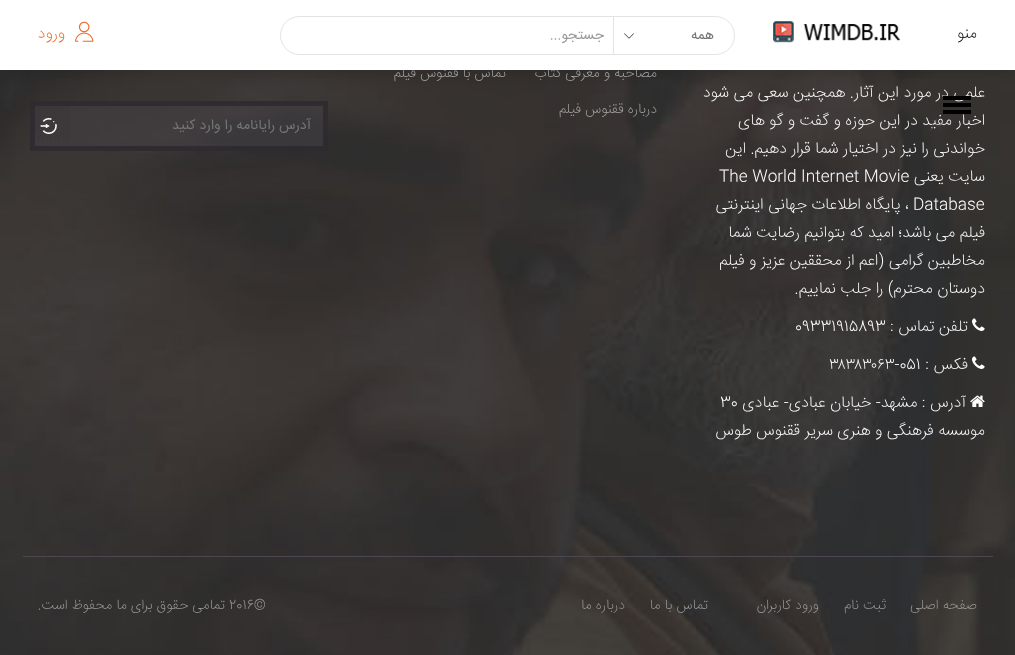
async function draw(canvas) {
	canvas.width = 1015;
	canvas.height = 655;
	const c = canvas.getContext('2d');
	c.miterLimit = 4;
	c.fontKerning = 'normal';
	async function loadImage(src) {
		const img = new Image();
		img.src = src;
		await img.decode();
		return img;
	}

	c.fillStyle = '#fff';
	c.fillRect(0, 0, 1015, 655);
	c.drawImage(await loadImage('img4.png'), 0, 70, 1015, 585);
	c.fillStyle = '#0000001a';
	c.filter = 'blur(5px)';
	c.beginPath();
	c.rect(0, 5, 1015, 70);
	c.fill();
	c.filter = 'none';
	c.direction = 'rtl';
	c.font = '200 14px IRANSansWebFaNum';
	c.fillStyle = '#a6a6a6';
	c.fillText('مصاحبه و معرفی کتاب', 657, 77);
	c.fillText('تماس با ققنوس فیلم', 506, 77);
	c.fillStyle = '#fff';
	c.fillRect(0, 0, 1015, 70);
	c.font = '200 16px IRANSansWebFaNum';
	c.fillStyle = '#000';
	c.fillText('منو', 977, 38);
	c.fillStyle = '#fff';
	c.fillText('علمی در مورد این آثار. همچنین سعی می شود', 985, 97);
	c.fillStyle = '#000';
	c.fillRect(943, 96, 28, 4);
	c.fillRect(943, 103, 28, 4);
	c.fillStyle = '#fff';
	c.fillText('اخبار مفید در این حوزه و گفت و گو های', 985, 125);
	c.fillStyle = '#000';
	c.fillRect(943, 110, 28, 4);
	c.font = '200 14px IRANSansWebFaNum';
	c.fillStyle = '#4b4845';
	c.fillText('باز', 942, 127);
	c.drawImage(await loadImage('img1.png'), 773, 21, 128, 22);
	c.beginPath();
	c.roundRect(280.5, 16.5, 454, 38, 19);
	c.strokeStyle = '#e3e3e3';
	c.stroke();
	c.fillStyle = '#e3e3e3';
	c.fillRect(613, 17, 1, 37);
	c.font = '14px IRANSansWebFaNum';
	c.fillStyle = '#757575';
	c.fillText('همه', 714, 39);
	c.drawImage(await loadImage('img2.png'), 624, 33, 10, 6);
	c.fillStyle = '#999';
	c.fillText('جستجو...', 604, 39);
	c.drawImage(await loadImage('img3.png'), 75, 21, 19, 21);
	c.font = '200 16px IRANSansWebFaNum';
	c.fillStyle = '#f26522';
	c.fillText('ورود', 65, 38);
	c.fillStyle = '#fff';
	for (const [text, x, y] of [
		['خواندنی را نیز در اختیار شما قرار دهیم.', 985, 153],
		['این', 746, 153],
		['سایت یعنی', 985, 181],
	]) {
		c.fillText(text, x, y);
	}
	c.direction = 'ltr';
	c.fillText('The World Internet Movie', 719, 181);
	c.fillText('Database', 913, 209);
	c.direction = 'rtl';
	for (const [text, x, y] of [
		['، پایگاه اطلاعات جهانی اینترنتی', 909, 209],
		['فیلم می باشد؛ امید که بتوانیم رضایت شما', 985, 237],
		['مخاطبین گرامی (اعم از محققین عزیز و فیلم', 985, 265],
		['دوستان محترم) را جلب نماییم.', 985, 293],
	]) {
		c.fillText(text, x, y);
	}
	c.drawImage(await loadImage('img5.png'), 972, 318, 13, 13);
	c.fillText('تلفن تماس :', 968, 331);
	c.direction = 'ltr';
	c.fillText('09331915893', 795, 331);
	c.drawImage(await loadImage('img6.png'), 972, 356, 13, 13);
	c.direction = 'rtl';
	c.fillText('فکس :', 968, 369);
	c.direction = 'ltr';
	c.fillText('۳۸۳۸۳۰۶۳-051', 829, 369);
	c.drawImage(await loadImage('img7.png'), 970, 395, 15, 12);
	c.direction = 'rtl';
	c.fillText('آدرس : مشهد- خیابان عبادی- عبادی', 966, 407);
	c.direction = 'ltr';
	c.fillText('30', 720, 407);
	c.direction = 'rtl';
	c.fillText('موسسه فرهنگی و هنری سریر ققنوس طوس', 985, 435);
	c.font = '200 14px IRANSansWebFaNum';
	c.fillStyle = '#a6a6a6';
	c.fillText('درباره ققنوس فیلم', 657, 113);
	c.fillStyle = '#45424880';
	c.fillRect(30, 101, 298, 50);
	c.strokeStyle = '#2e2a30e6';
	c.lineWidth = 5;
	c.strokeRect(32.5, 103.5, 293, 45);
	c.font = '14px IRANSansWebFaNum';
	c.fillStyle = '#757575';
	c.fillText('آدرس رایانامه را وارد کنید', 311, 129);
	c.drawImage(await loadImage('img9.png'), 40, 118, 17, 16);
	c.drawImage(await loadImage('img8.png'), 35, 106, 35, 35);
	c.fillStyle = '#4d4752';
	c.fillRect(23, 556, 970, 1);
	c.font = '200 14px IRANSansWebFaNum';
	c.fillStyle = '#999';
	for (const [text, x, y] of [
		['صفحه اصلی', 977, 609],
		['ثبت نام', 886, 609],
		['ورود کاربران', 819, 609],
		['تماس با ما', 708, 609],
		['درباره ما', 625, 609],
	]) {
		c.fillText(text, x, y);
	}
	c.direction = 'ltr';
	c.fillText('2016©', 229, 609);
	c.direction = 'rtl';
	c.fillText('تمامی حقوق برای ما محفوظ است.', 225, 609);
}

draw(document.querySelector('canvas'));
